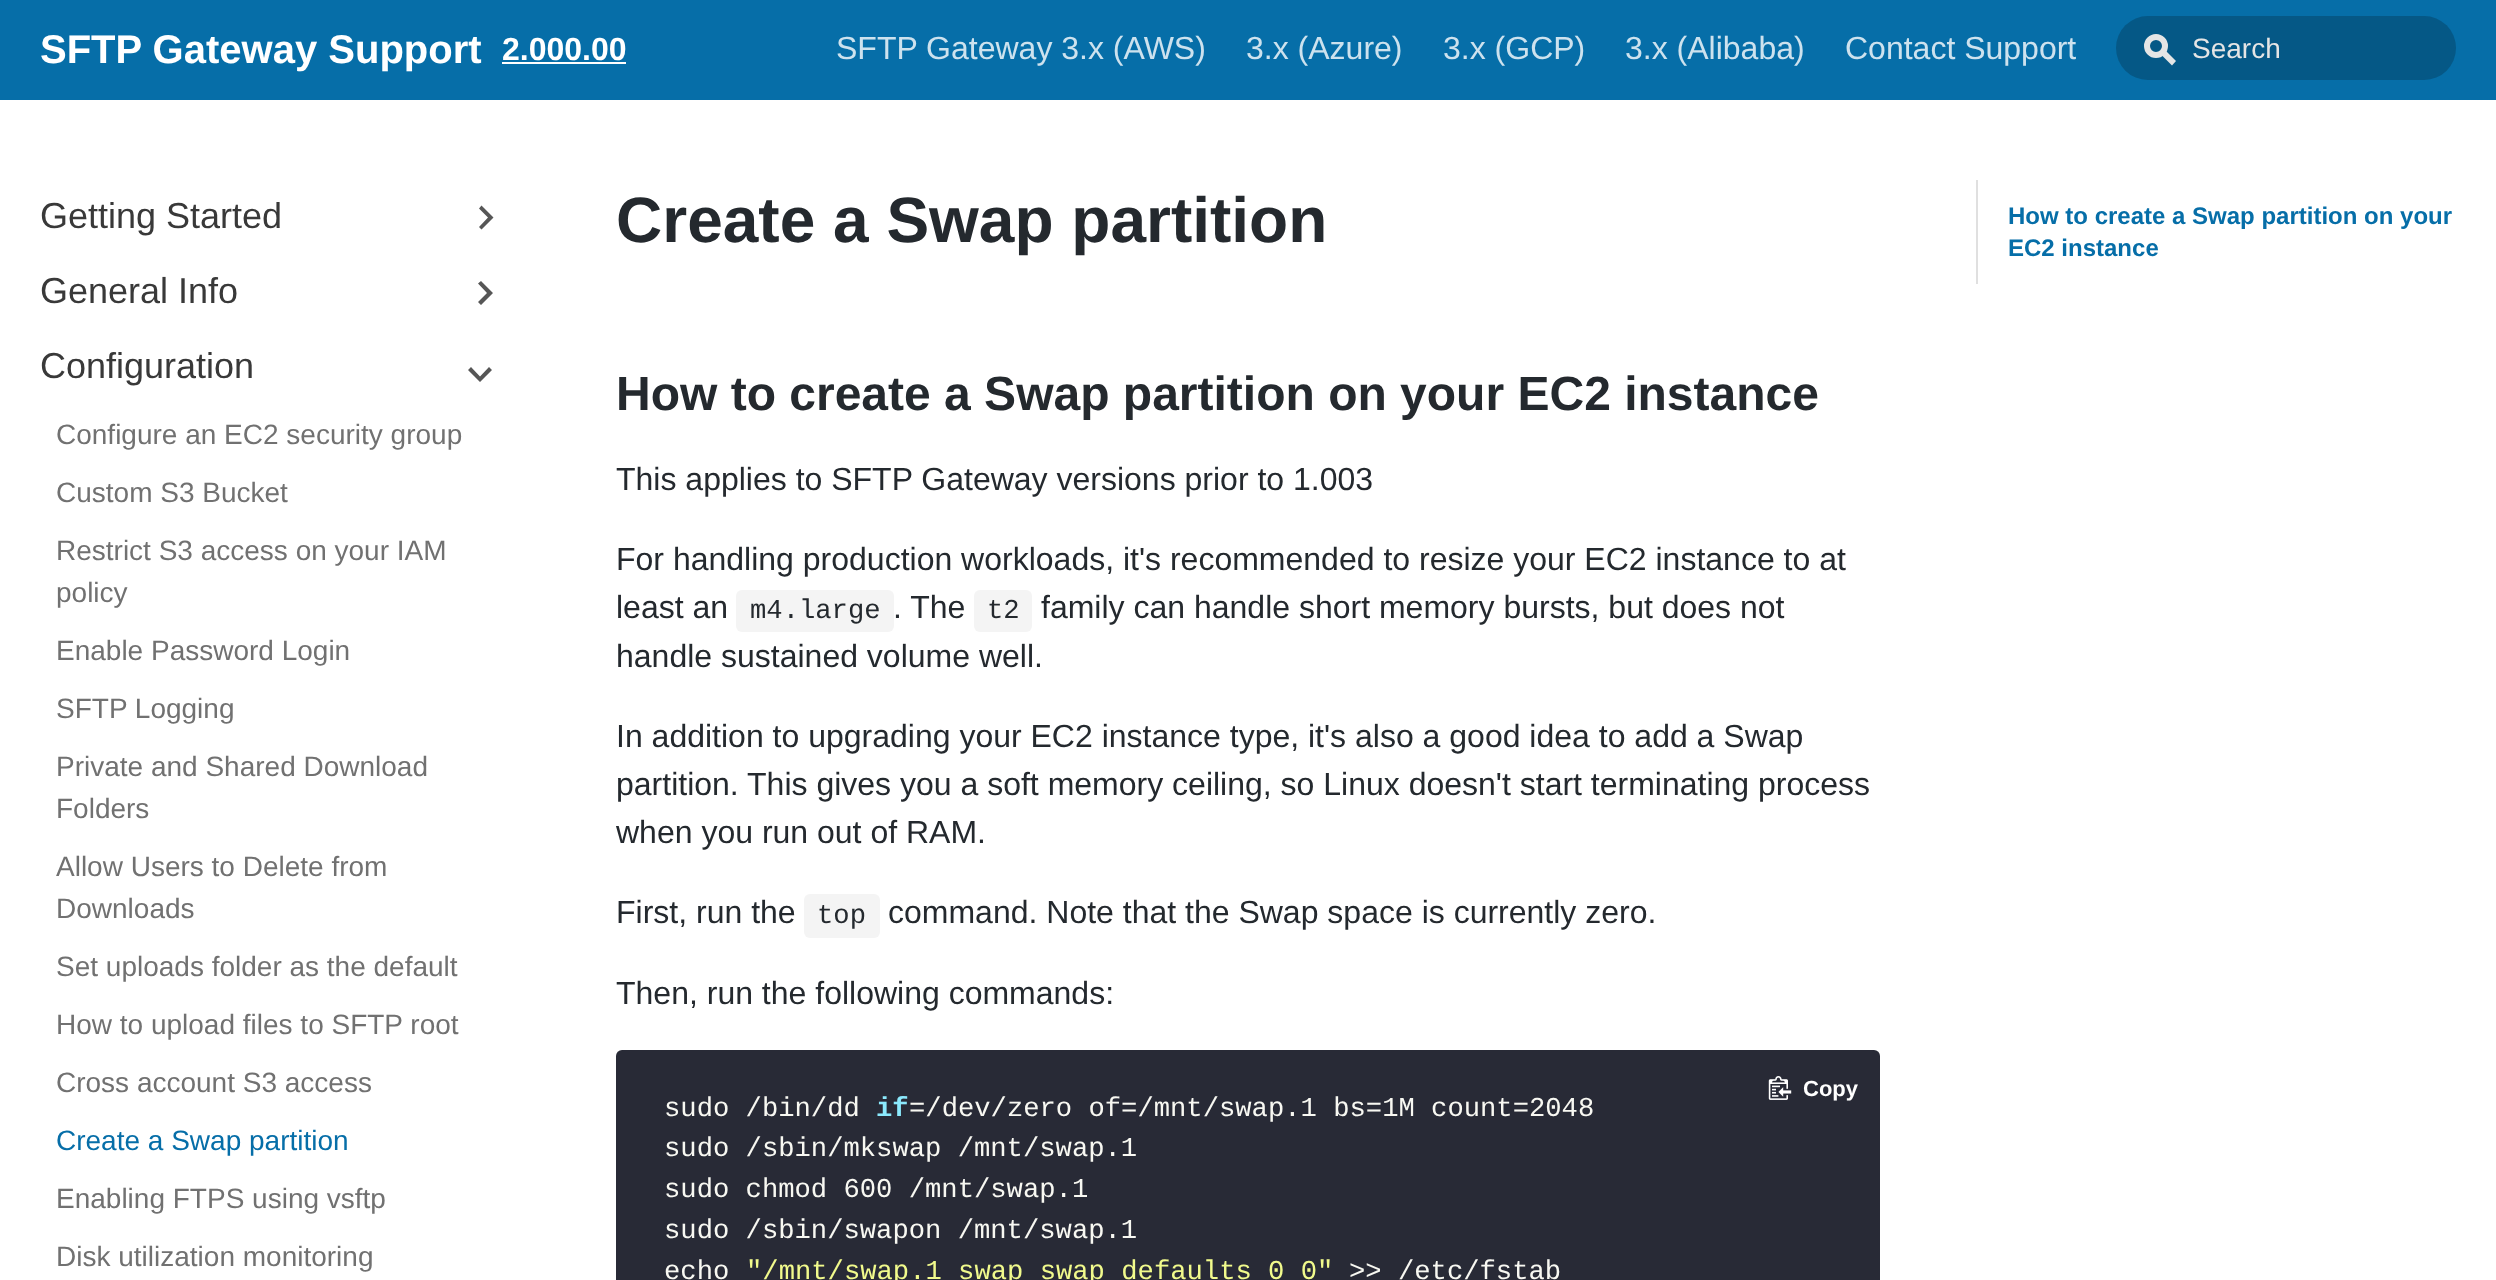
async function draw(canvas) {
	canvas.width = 2496;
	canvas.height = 1280;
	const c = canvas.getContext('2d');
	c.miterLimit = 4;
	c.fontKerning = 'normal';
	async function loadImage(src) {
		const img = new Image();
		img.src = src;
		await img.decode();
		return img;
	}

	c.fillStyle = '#fff';
	c.fillRect(0, 0, 2496, 1280);
	c.fillStyle = '#066ea8';
	c.fillRect(0, 0, 2496, 100);
	c.font = 'bold 40px Liberation Sans';
	c.fillStyle = '#fff';
	c.fillText('SFTP Gateway Support', 40, 63);
	c.font = 'bold 32px Liberation Sans';
	c.fillText('2.000.00', 502, 60);
	c.fillRect(502, 62, 124, 2);
	c.font = '32px Liberation Sans';
	c.fillStyle = '#cde2ee';
	for (const [text, x, y] of [
		['SFTP Gateway 3.x (AWS)', 836, 59],
		['3.x (Azure)', 1246, 59],
		['3.x (GCP)', 1443, 59],
		['3.x (Alibaba)', 1625, 59],
		['Contact Support', 1845, 59],
	]) {
		c.fillText(text, x, y);
	}
	c.fillStyle = '#055886';
	c.beginPath();
	c.roundRect(2116, 16, 340, 64, 32);
	c.fill();
	c.beginPath();
	c.arc(2156, 46, 9, 0, 2 * Math.PI);
	c.strokeStyle = '#e5e5e5';
	c.lineWidth = 6;
	c.stroke();
	c.fillStyle = '#e5e5e5';
	c.beginPath();
	c.moveTo(2162, 55.5);
	c.lineTo(2166, 51);
	c.lineTo(2176, 61);
	c.lineTo(2172, 65.5);
	c.closePath();
	c.fill();
	c.font = '28px Liberation Sans';
	c.fillText('Search', 2192, 58);
	c.font = '36px Liberation Sans';
	c.fillStyle = '#393939';
	c.fillText('Getting Started', 40, 228);
	c.fillStyle = '#565656';
	c.beginPath();
	c.moveTo(479, 208.5);
	c.lineTo(488, 217.5);
	c.lineTo(479, 227);
	c.lineTo(481.5, 229.5);
	c.lineTo(493.5, 217.5);
	c.lineTo(481.5, 205.5);
	c.closePath();
	c.fill();
	c.fillStyle = '#393939';
	c.fillText('General Info', 40, 303);
	c.fillStyle = '#565656';
	c.beginPath();
	c.moveTo(478, 283.5);
	c.lineTo(487, 293);
	c.lineTo(478, 302);
	c.lineTo(481, 305);
	c.lineTo(493, 293);
	c.lineTo(481, 281);
	c.closePath();
	c.fill();
	c.fillStyle = '#393939';
	c.fillText('Configuration', 40, 378);
	c.fillStyle = '#565656';
	c.beginPath();
	c.moveTo(489, 367);
	c.lineTo(480, 376.5);
	c.lineTo(471, 367);
	c.lineTo(468, 370);
	c.lineTo(480, 382);
	c.lineTo(492, 370);
	c.closePath();
	c.fill();
	c.font = '28px Liberation Sans';
	c.fillStyle = '#717171';
	for (const [text, x, y] of [
		['Configure an EC2 security group', 56, 444],
		['Custom S3 Bucket', 56, 502],
		['Restrict S3 access on your IAM', 56, 560],
		['policy', 56, 602],
		['Enable Password Login', 56, 660],
		['SFTP Logging', 56, 718],
		['Private and Shared Download', 56, 776],
		['Folders', 56, 818],
		['Allow Users to Delete from', 56, 876],
		['Downloads', 56, 918],
		['Set uploads folder as the default', 56, 976],
		['How to upload files to SFTP root', 56, 1034],
		['Cross account S3 access', 56, 1092],
	]) {
		c.fillText(text, x, y);
	}
	c.fillStyle = '#066ea8';
	c.fillText('Create a Swap partition', 56, 1150);
	c.fillStyle = '#717171';
	c.fillText('Enabling FTPS using vsftp', 56, 1208);
	c.fillText('Disk utilization monitoring', 56, 1266);
	c.font = 'bold 64px Liberation Sans';
	c.fillStyle = '#24292e';
	c.fillText('Create a Swap partition', 616, 242);
	c.font = 'bold 48px Liberation Sans';
	c.fillText('How to create a Swap partition on your EC2 instance', 616, 410);
	c.font = '32px Liberation Sans';
	for (const [text, x, y] of [
		['This applies to SFTP Gateway versions prior to 1.003', 616, 490],
		['For handling production workloads, it\'s recommended to resize your EC2 instance to at', 616, 570],
		['least an', 616, 618],
	]) {
		c.fillText(text, x, y);
	}
	c.fillStyle = '#f4f4f4';
	c.beginPath();
	c.roundRect(736, 590, 158, 42, 6);
	c.fill();
	c.font = '27.2px Liberation Mono';
	c.fillStyle = '#24292e';
	c.fillText('m4.large', 750, 618);
	c.font = '32px Liberation Sans';
	c.fillText('. The', 893, 618);
	c.fillStyle = '#f4f4f4';
	c.beginPath();
	c.roundRect(974, 590, 58, 42, 6);
	c.fill();
	c.font = '27.2px Liberation Mono';
	c.fillStyle = '#24292e';
	c.fillText('t2', 987, 618);
	c.font = '32px Liberation Sans';
	for (const [text, x, y] of [
		['family can handle short memory bursts, but does not', 1041, 618],
		['handle sustained volume well.', 616, 667],
		['In addition to upgrading your EC2 instance type, it\'s also a good idea to add a Swap', 616, 747],
		['partition. This gives you a soft memory ceiling, so Linux doesn\'t start terminating process', 616, 795],
		['when you run out of RAM.', 616, 843],
		['First, run the', 616, 923],
	]) {
		c.fillText(text, x, y);
	}
	c.fillStyle = '#f4f4f4';
	c.beginPath();
	c.roundRect(804, 894, 76, 44, 6);
	c.fill();
	c.font = '27.2px Liberation Mono';
	c.fillStyle = '#24292e';
	c.fillText('top', 817, 923);
	c.font = '32px Liberation Sans';
	c.fillText('command. Note that the Swap space is currently zero.', 888, 923);
	c.fillText('Then, run the following commands:', 616, 1004);
	c.fillStyle = '#282a36';
	c.beginPath();
	c.roundRect(616, 1050, 1264, 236, 6);
	c.fill();
	c.drawImage(await loadImage('img1.png'), 1768, 1076, 24, 24);
	c.font = 'bold 22px Liberation Sans';
	c.fillStyle = '#fff';
	c.fillText('Copy', 1803, 1096);
	c.font = '27.2px Liberation Mono';
	c.fillStyle = '#f8f8f2';
	c.fillText('sudo /bin/dd', 664, 1116);
	c.font = 'bold 27.2px Liberation Mono';
	c.fillStyle = '#8be9fd';
	c.fillText('if', 876, 1116);
	c.font = '27.2px Liberation Mono';
	c.fillStyle = '#f8f8f2';
	for (const [text, x, y] of [
		['=/dev/zero of=/mnt/swap.1 bs=1M count=2048', 909, 1116],
		['sudo /sbin/mkswap /mnt/swap.1', 664, 1156],
		['sudo chmod 600 /mnt/swap.1', 664, 1197],
		['sudo /sbin/swapon /mnt/swap.1', 664, 1238],
		['echo', 664, 1279],
	]) {
		c.fillText(text, x, y);
	}
	c.fillStyle = '#f1fa8c';
	c.fillText('"/mnt/swap.1 swap swap defaults 0 0"', 746, 1279);
	c.fillStyle = '#f8f8f2';
	c.fillText('>> /etc/fstab', 1349, 1279);
	c.fillStyle = '#e0e0e0';
	c.fillRect(1976, 180, 2, 104);
	c.font = 'bold 24px Liberation Sans';
	c.fillStyle = '#066ea8';
	c.fillText('How to create a Swap partition on your', 2008, 224);
	c.fillText('EC2 instance', 2008, 256);
}

draw(document.querySelector('canvas'));
